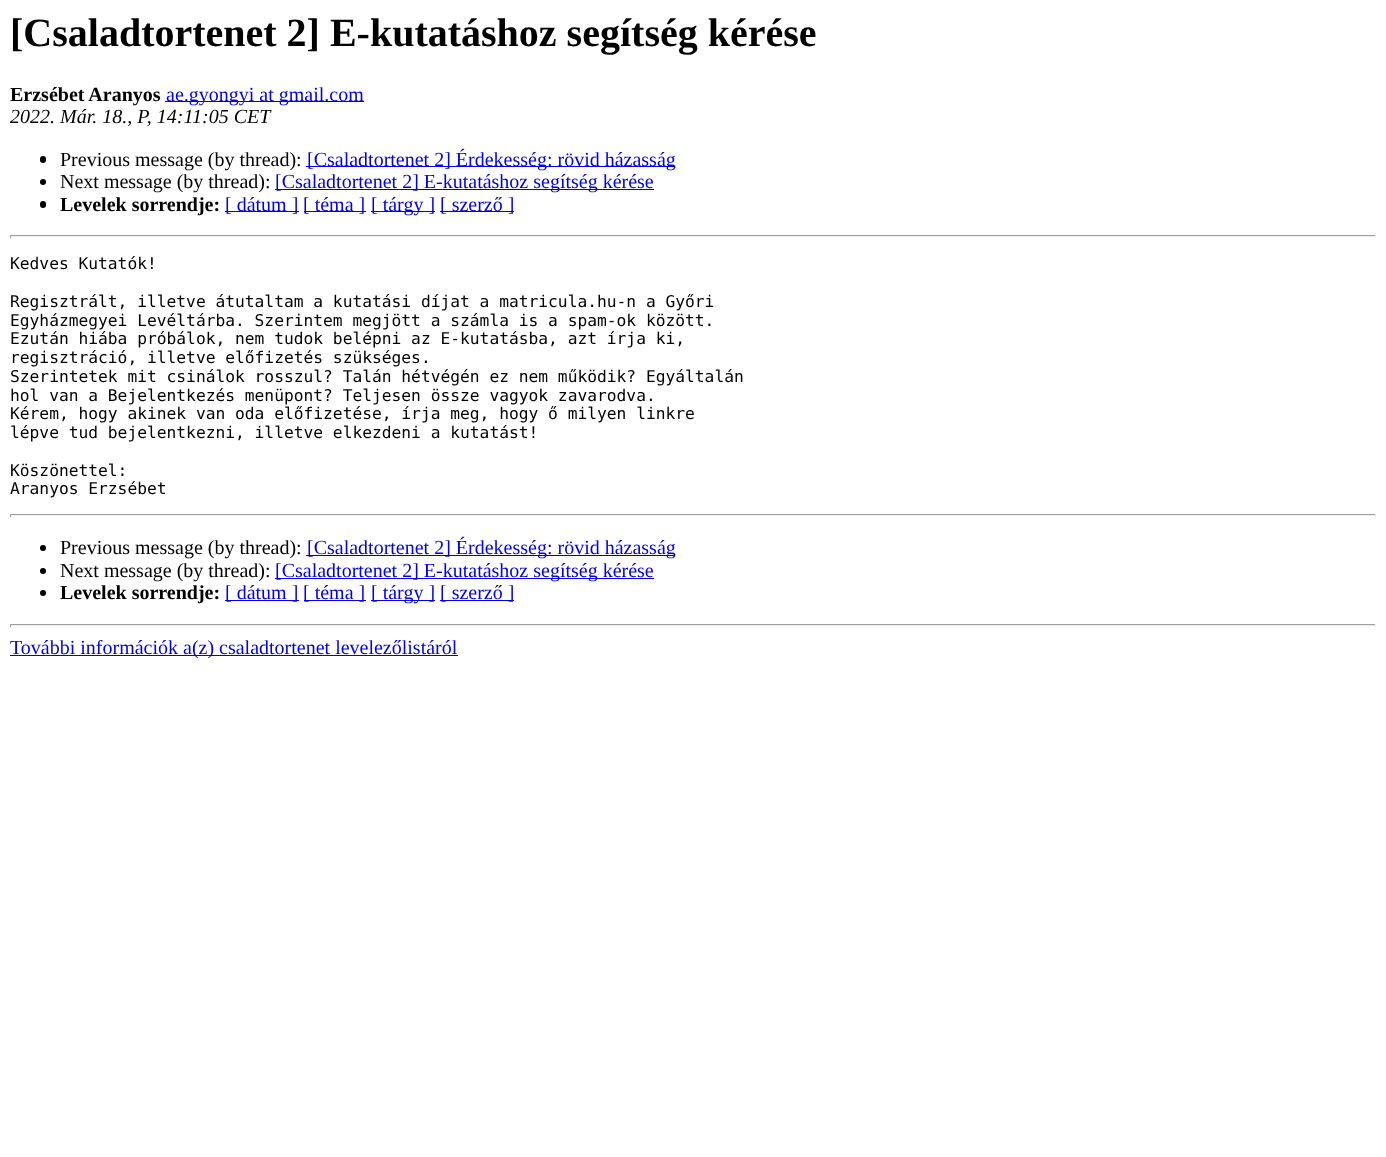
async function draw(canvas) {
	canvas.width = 1386;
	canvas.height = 1157;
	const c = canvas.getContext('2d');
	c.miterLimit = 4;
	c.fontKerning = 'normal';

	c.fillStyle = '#fff';
	c.fillRect(0, 0, 1386, 1157);
	c.font = 'bold 40px Liberation Serif';
	c.fillStyle = '#000';
	c.fillText('[Csaladtortenet 2] E-kutatáshoz segítség kérése', 10, 46);
	c.font = 'bold 20px Liberation Serif';
	c.fillText('Erzsébet Aranyos', 10, 101);
	c.fillStyle = '#00e';
	c.fillRect(165, 101, 199, 1);
	c.font = '20px Liberation Serif';
	c.fillText('ae.gyongyi at gmail.com', 166, 101);
	c.font = 'italic 20px Liberation Serif';
	c.fillStyle = '#000';
	c.fillText('2022. Már. 18., P, 14:11:05 CET', 10, 123);
	c.beginPath();
	c.roundRect(40, 156, 6, 7, 3);
	c.fill();
	c.font = '20px Liberation Serif';
	c.fillText('Previous message (by thread):', 60, 166);
	c.fillStyle = '#00e';
	c.fillRect(306, 166, 369, 1);
	c.fillText('[Csaladtortenet 2] Érdekesség: rövid házasság', 307, 166);
	c.fillStyle = '#000';
	c.beginPath();
	c.arc(43, 182, 3, 0, 2 * Math.PI);
	c.fill();
	c.fillText('Next message (by thread):', 60, 188);
	c.fillStyle = '#00e';
	c.fillRect(275, 189, 379, 1);
	c.fillText('[Csaladtortenet 2] E-kutatáshoz segítség kérése', 275, 188);
	c.fillStyle = '#000';
	c.beginPath();
	c.roundRect(40, 201, 6, 7, 3);
	c.fill();
	c.font = 'bold 20px Liberation Serif';
	c.fillText('Levelek sorrendje:', 60, 211);
	c.fillStyle = '#00e';
	c.fillRect(225, 211, 74, 1);
	c.font = '20px Liberation Serif';
	c.fillText('[ dátum ]', 225, 211);
	c.fillRect(304, 211, 62, 1);
	c.fillText('[ téma ]', 303, 211);
	c.fillRect(371, 211, 64, 1);
	c.fillText('[ tárgy ]', 371, 211);
	c.fillRect(440, 211, 74, 1);
	c.fillText('[ szerző ]', 440, 211);
	for (const [x, y, w, h, color] of [
		[10, 235, 1366, 1, '#9f9f9f'],
		[1375, 235, 1, 3, '#eee'],
		[10, 236, 1366, 1, '#eee'],
		[10, 235, 1, 3, '#9f9f9f'],
	]) {
		c.fillStyle = color;
		c.fillRect(x, y, w, h);
	}
	c.font = '16.25px DejaVu Sans Mono';
	c.fillStyle = '#000';
	for (const [text, x, y] of [
		['Kedves Kutatók!', 10, 269],
		['Regisztrált, illetve átutaltam a kutatási díjat a matricula.hu-n a Győri', 10, 307],
		['Egyházmegyei Levéltárba. Szerintem megjött a számla is a spam-ok között.', 10, 326],
		['Ezután hiába próbálok, nem tudok belépni az E-kutatásba, azt írja ki,', 10, 344],
		['regisztráció, illetve előfizetés szükséges.', 10, 363],
		['Szerintetek mit csinálok rosszul? Talán hétvégén ez nem működik? Egyáltalán', 10, 382],
		['hol van a Bejelentkezés menüpont? Teljesen össze vagyok zavarodva.', 10, 401],
		['Kérem, hogy akinek van oda előfizetése, írja meg, hogy ő milyen linkre', 10, 419],
		['lépve tud bejelentkezni, illetve elkezdeni a kutatást!', 10, 438],
		['Köszönettel:', 10, 476],
		['Aranyos Erzsébet', 10, 494],
	]) {
		c.fillText(text, x, y);
	}
	for (const [x, y, w, h, color] of [
		[10, 514, 1366, 1, '#9f9f9f'],
		[1375, 514, 1, 3, '#eee'],
		[10, 515, 1366, 1, '#eee'],
		[10, 514, 1, 3, '#9f9f9f'],
	]) {
		c.fillStyle = color;
		c.fillRect(x, y, w, h);
	}
	c.fillStyle = '#000';
	c.beginPath();
	c.arc(43, 548, 3, 0, 2 * Math.PI);
	c.fill();
	c.font = '20px Liberation Serif';
	c.fillText('Previous message (by thread):', 60, 554);
	c.fillStyle = '#00e';
	c.fillRect(306, 555, 369, 1);
	c.fillText('[Csaladtortenet 2] Érdekesség: rövid házasság', 307, 554);
	c.fillStyle = '#000';
	c.beginPath();
	c.arc(43, 571, 3, 0, 2 * Math.PI);
	c.fill();
	c.fillText('Next message (by thread):', 60, 577);
	c.fillStyle = '#00e';
	c.fillRect(275, 578, 379, 1);
	c.fillText('[Csaladtortenet 2] E-kutatáshoz segítség kérése', 275, 577);
	c.fillStyle = '#000';
	c.beginPath();
	c.arc(43, 593, 3, 0, 2 * Math.PI);
	c.fill();
	c.font = 'bold 20px Liberation Serif';
	c.fillText('Levelek sorrendje:', 60, 599);
	c.fillStyle = '#00e';
	c.fillRect(225, 600, 74, 1);
	c.font = '20px Liberation Serif';
	c.fillText('[ dátum ]', 225, 599);
	c.fillRect(304, 600, 62, 1);
	c.fillText('[ téma ]', 303, 599);
	c.fillRect(371, 600, 64, 1);
	c.fillText('[ tárgy ]', 371, 599);
	c.fillRect(440, 600, 74, 1);
	c.fillText('[ szerző ]', 440, 599);
	for (const [x, y, w, h, color] of [
		[10, 624, 1366, 1, '#9f9f9f'],
		[1375, 624, 1, 3, '#eee'],
		[10, 625, 1366, 1, '#eee'],
		[10, 624, 1, 3, '#9f9f9f'],
		[10, 655, 448, 1, '#00e'],
	]) {
		c.fillStyle = color;
		c.fillRect(x, y, w, h);
	}
	c.fillText('További információk a(z) csaladtortenet levelezőlistáról', 10, 654);
}

draw(document.querySelector('canvas'));
